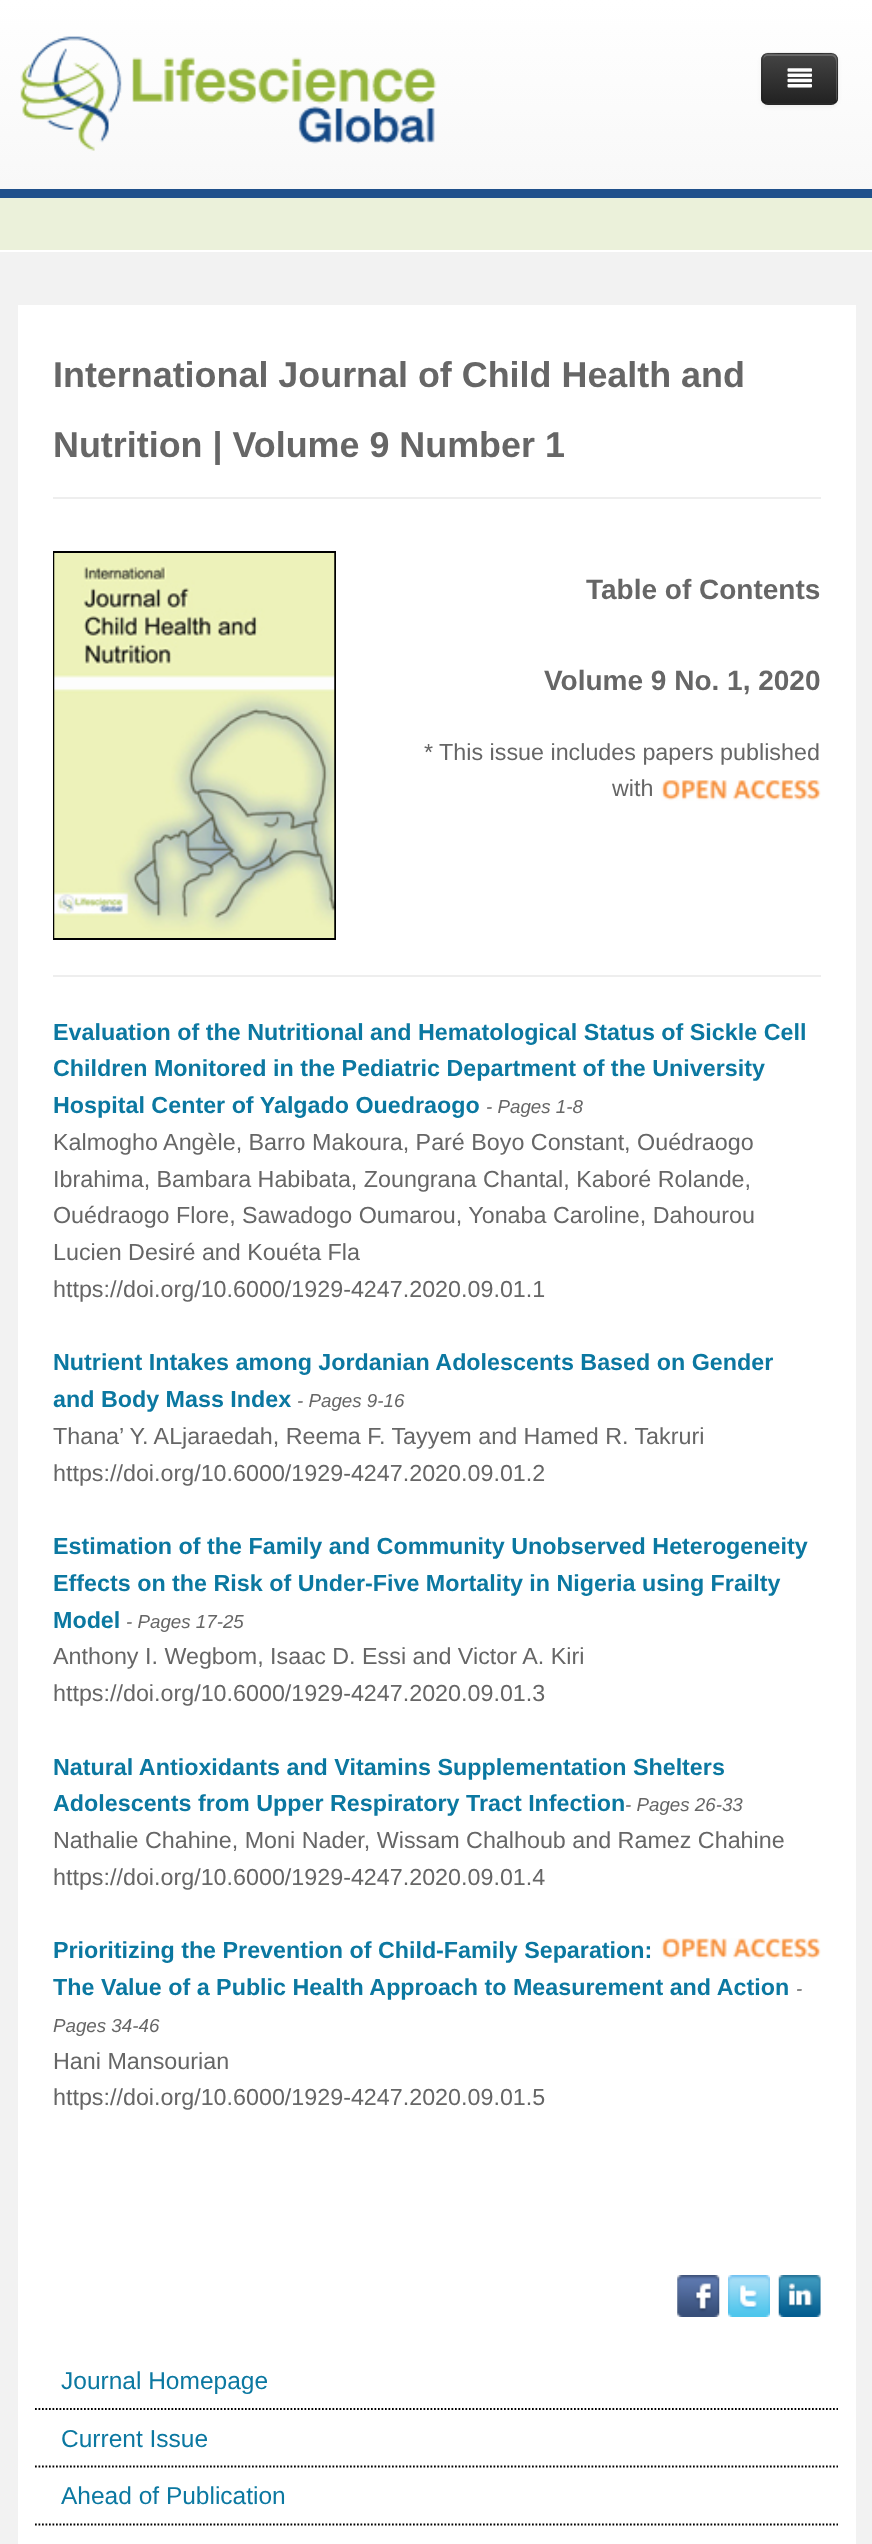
async function draw(canvas) {
	canvas.width = 872;
	canvas.height = 2544;
	const c = canvas.getContext('2d');
	c.miterLimit = 4;
	c.fontKerning = 'normal';
	async function loadImage(src) {
		const img = new Image();
		img.src = src;
		await img.decode();
		return img;
	}
	let gradient;

	c.fillStyle = '#f2f2f2';
	c.fillRect(0, 0, 872, 2544);
	gradient = c.createLinearGradient(437, 0, 437, 189);
	gradient.addColorStop(0, '#fff');
	gradient.addColorStop(1, '#f8f8f8');
	c.fillStyle = gradient;
	c.fillRect(0, 0, 872, 189);
	c.drawImage(await loadImage('img1.png'), 20, 36, 417, 115);
	c.fillStyle = '#0000000d';
	c.filter = 'blur(2px)';
	c.beginPath();
	c.roundRect(761, 54, 77, 53, 7);
	c.fill();
	c.filter = 'none';
	c.fillStyle = '#363636';
	c.beginPath();
	c.roundRect(761, 53, 77, 52, 7);
	c.fill();
	c.save();
	c.beginPath();
	c.roundRect(761, 53, 77, 52, 7);
	c.clip();
	gradient = c.createLinearGradient(800, 54, 800, 103);
	gradient.addColorStop(0, '#444');
	gradient.addColorStop(1, '#222');
	c.fillStyle = gradient;
	c.fillRect(761, 54, 77, 49);
	c.restore();
	c.fillStyle = '#ffffff33';
	c.beginPath();
	c.moveTo(768, 56);
	c.lineTo(831, 56);
	c.bezierCurveTo(837, 56, 836, 63, 836, 68);
	c.lineTo(836, 101);
	c.bezierCurveTo(838, 99, 837, 94, 837, 92);
	c.lineTo(837, 78);
	c.bezierCurveTo(837, 49, 841, 54, 811, 54);
	c.lineTo(779, 54);
	c.bezierCurveTo(771, 54, 763, 51, 763, 61);
	c.bezierCurveTo(763, 58, 765, 56, 768, 56);
	c.closePath();
	c.fill();
	c.beginPath();
	c.moveTo(835.5, 102.5);
	c.bezierCurveTo(834.5, 103.5, 833, 104, 831, 104);
	c.lineTo(768, 104);
	c.bezierCurveTo(766.5, 104, 765, 103.5, 764, 102.5);
	c.strokeStyle = '#00000040';
	c.lineWidth = 1.8;
	c.stroke();
	c.beginPath();
	c.moveTo(764, 102.5);
	c.bezierCurveTo(763, 101, 762, 99.5, 762, 98);
	c.lineTo(762, 59.5);
	c.bezierCurveTo(762, 58, 763, 56.5, 764, 55);
	c.bezierCurveTo(765, 54, 766.5, 53.5, 768, 53.5);
	c.lineTo(831, 53.5);
	c.bezierCurveTo(833, 53.5, 834.5, 54, 835.5, 55);
	c.bezierCurveTo(836.5, 56.5, 837.5, 58, 837.5, 59.5);
	c.lineTo(837.5, 98);
	c.bezierCurveTo(837.5, 99.5, 836.5, 101, 835.5, 102.5);
	c.strokeStyle = '#0000001a';
	c.stroke();
	c.drawImage(await loadImage('img2.png'), 787, 68, 25, 20);
	for (const [x, y, w, h, color] of [
		[0, 198, 872, 52, '#ebf1da'],
		[0, 189, 872, 9, '#20518b'],
		[0, 250, 872, 2, '#fff'],
		[18, 305, 838, 2239, '#fff'],
		[53, 497, 768, 2, '#eee'],
	]) {
		c.fillStyle = color;
		c.fillRect(x, y, w, h);
	}
	c.font = 'bold 35.9px Liberation Sans';
	c.fillStyle = '#666';
	c.fillText('International Journal of Child Health and', 53, 387);
	c.fillText('Nutrition | Volume 9 Number 1', 53, 457);
	c.strokeStyle = '#000';
	c.lineWidth = 2;
	c.strokeRect(54, 552, 281, 387);
	c.drawImage(await loadImage('img3.png'), 54, 553, 281, 385);
	c.font = 'bold 28px Liberation Sans';
	c.fillText('Table of Contents', 586, 599);
	c.fillText('Volume 9 No. 1, 2020', 544, 690);
	c.font = '23.3px Liberation Sans';
	c.fillText('* This issue includes papers published', 424, 760);
	c.fillText('with', 612, 796);
	c.drawImage(await loadImage('img4.png'), 661, 780, 160, 21);
	c.fillStyle = '#eee';
	c.fillRect(53, 975, 768, 2);
	c.font = 'bold 23.3px Liberation Sans';
	c.fillStyle = '#0b78a1';
	for (const [text, x, y] of [
		['Evaluation of the Nutritional and Hematological Status of Sickle Cell', 53, 1040],
		['Children Monitored in the Pediatric Department of the University', 53, 1076],
		['Hospital Center of Yalgado Ouedraogo', 53, 1113],
	]) {
		c.fillText(text, x, y);
	}
	c.font = 'italic 18.75px Liberation Sans';
	c.fillStyle = '#666';
	c.fillText('- Pages 1-8', 486, 1113);
	c.font = '23.3px Liberation Sans';
	for (const [text, x, y] of [
		['Kalmogho Angèle, Barro Makoura, Paré Boyo Constant, Ouédraogo', 53, 1150],
		['Ibrahima, Bambara Habibata, Zoungrana Chantal, Kaboré Rolande,', 53, 1187],
		['Ouédraogo Flore, Sawadogo Oumarou, Yonaba Caroline, Dahourou', 53, 1223],
		['Lucien Desiré and Kouéta Fla', 53, 1260],
		['https://doi.org/10.6000/1929-4247.2020.09.01.1', 53, 1297],
	]) {
		c.fillText(text, x, y);
	}
	c.font = 'bold 23.3px Liberation Sans';
	c.fillStyle = '#0b78a1';
	c.fillText('Nutrient Intakes among Jordanian Adolescents Based on Gender', 53, 1370);
	c.fillText('and Body Mass Index', 53, 1407);
	c.font = 'italic 18.75px Liberation Sans';
	c.fillStyle = '#666';
	c.fillText('- Pages 9-16', 297, 1407);
	c.font = '23.3px Liberation Sans';
	c.fillText('Thana’ Y. ALjaraedah, Reema F. Tayyem and Hamed R. Takruri', 53, 1444);
	c.fillText('https://doi.org/10.6000/1929-4247.2020.09.01.2', 53, 1481);
	c.font = 'bold 23.3px Liberation Sans';
	c.fillStyle = '#0b78a1';
	for (const [text, x, y] of [
		['Estimation of the Family and Community Unobserved Heterogeneity', 53, 1554],
		['Effects on the Risk of Under-Five Mortality in Nigeria using Frailty', 53, 1591],
		['Model', 53, 1628],
	]) {
		c.fillText(text, x, y);
	}
	c.font = 'italic 18.75px Liberation Sans';
	c.fillStyle = '#666';
	c.fillText('- Pages 17-25', 126, 1628);
	c.font = '23.3px Liberation Sans';
	c.fillText('Anthony I. Wegbom, Isaac D. Essi and Victor A. Kiri', 53, 1664);
	c.fillText('https://doi.org/10.6000/1929-4247.2020.09.01.3', 53, 1701);
	c.font = 'bold 23.3px Liberation Sans';
	c.fillStyle = '#0b78a1';
	c.fillText('Natural Antioxidants and Vitamins Supplementation Shelters', 53, 1775);
	c.fillText('Adolescents from Upper Respiratory Tract Infection', 53, 1811);
	c.font = 'italic 18.75px Liberation Sans';
	c.fillStyle = '#666';
	c.fillText('- Pages 26-33', 625, 1811);
	c.font = '23.3px Liberation Sans';
	c.fillText('Nathalie Chahine, Moni Nader, Wissam Chalhoub and Ramez Chahine', 53, 1848);
	c.fillText('https://doi.org/10.6000/1929-4247.2020.09.01.4', 53, 1885);
	c.font = 'bold 23.3px Liberation Sans';
	c.fillStyle = '#0b78a1';
	c.fillText('Prioritizing the Prevention of Child-Family Separation:', 53, 1958);
	c.drawImage(await loadImage('img5.png'), 661, 1938, 160, 21);
	c.fillText('The Value of a Public Health Approach to Measurement and Action', 53, 1995);
	c.font = 'italic 18.75px Liberation Sans';
	c.fillStyle = '#666';
	c.fillText('-', 796, 1995);
	c.fillText('Pages 34-46', 53, 2032);
	c.font = '23.3px Liberation Sans';
	c.fillText('Hani Mansourian', 53, 2069);
	c.fillText('https://doi.org/10.6000/1929-4247.2020.09.01.5', 53, 2105);
	c.drawImage(await loadImage('img6.png'), 677, 2275, 43, 42);
	c.drawImage(await loadImage('img7.png'), 728, 2275, 42, 42);
	c.drawImage(await loadImage('img8.png'), 778, 2275, 43, 42);
	c.beginPath();
	c.moveTo(35, 2409);
	c.lineTo(838, 2409);
	c.lineWidth = 1.8;
	c.setLineDash([1.75, 1.75]);
	c.stroke();
	c.font = '24.5px Liberation Sans';
	c.fillStyle = '#0b78a1';
	c.fillText('Journal Homepage', 61, 2389);
	c.beginPath();
	c.moveTo(35, 2466.5);
	c.lineTo(838, 2466.5);
	c.stroke();
	c.fillText('Current Issue', 61, 2447);
	c.beginPath();
	c.moveTo(35, 2524.5);
	c.lineTo(838, 2524.5);
	c.stroke();
	c.fillText('Ahead of Publication', 61, 2504);
}

draw(document.querySelector('canvas'));
